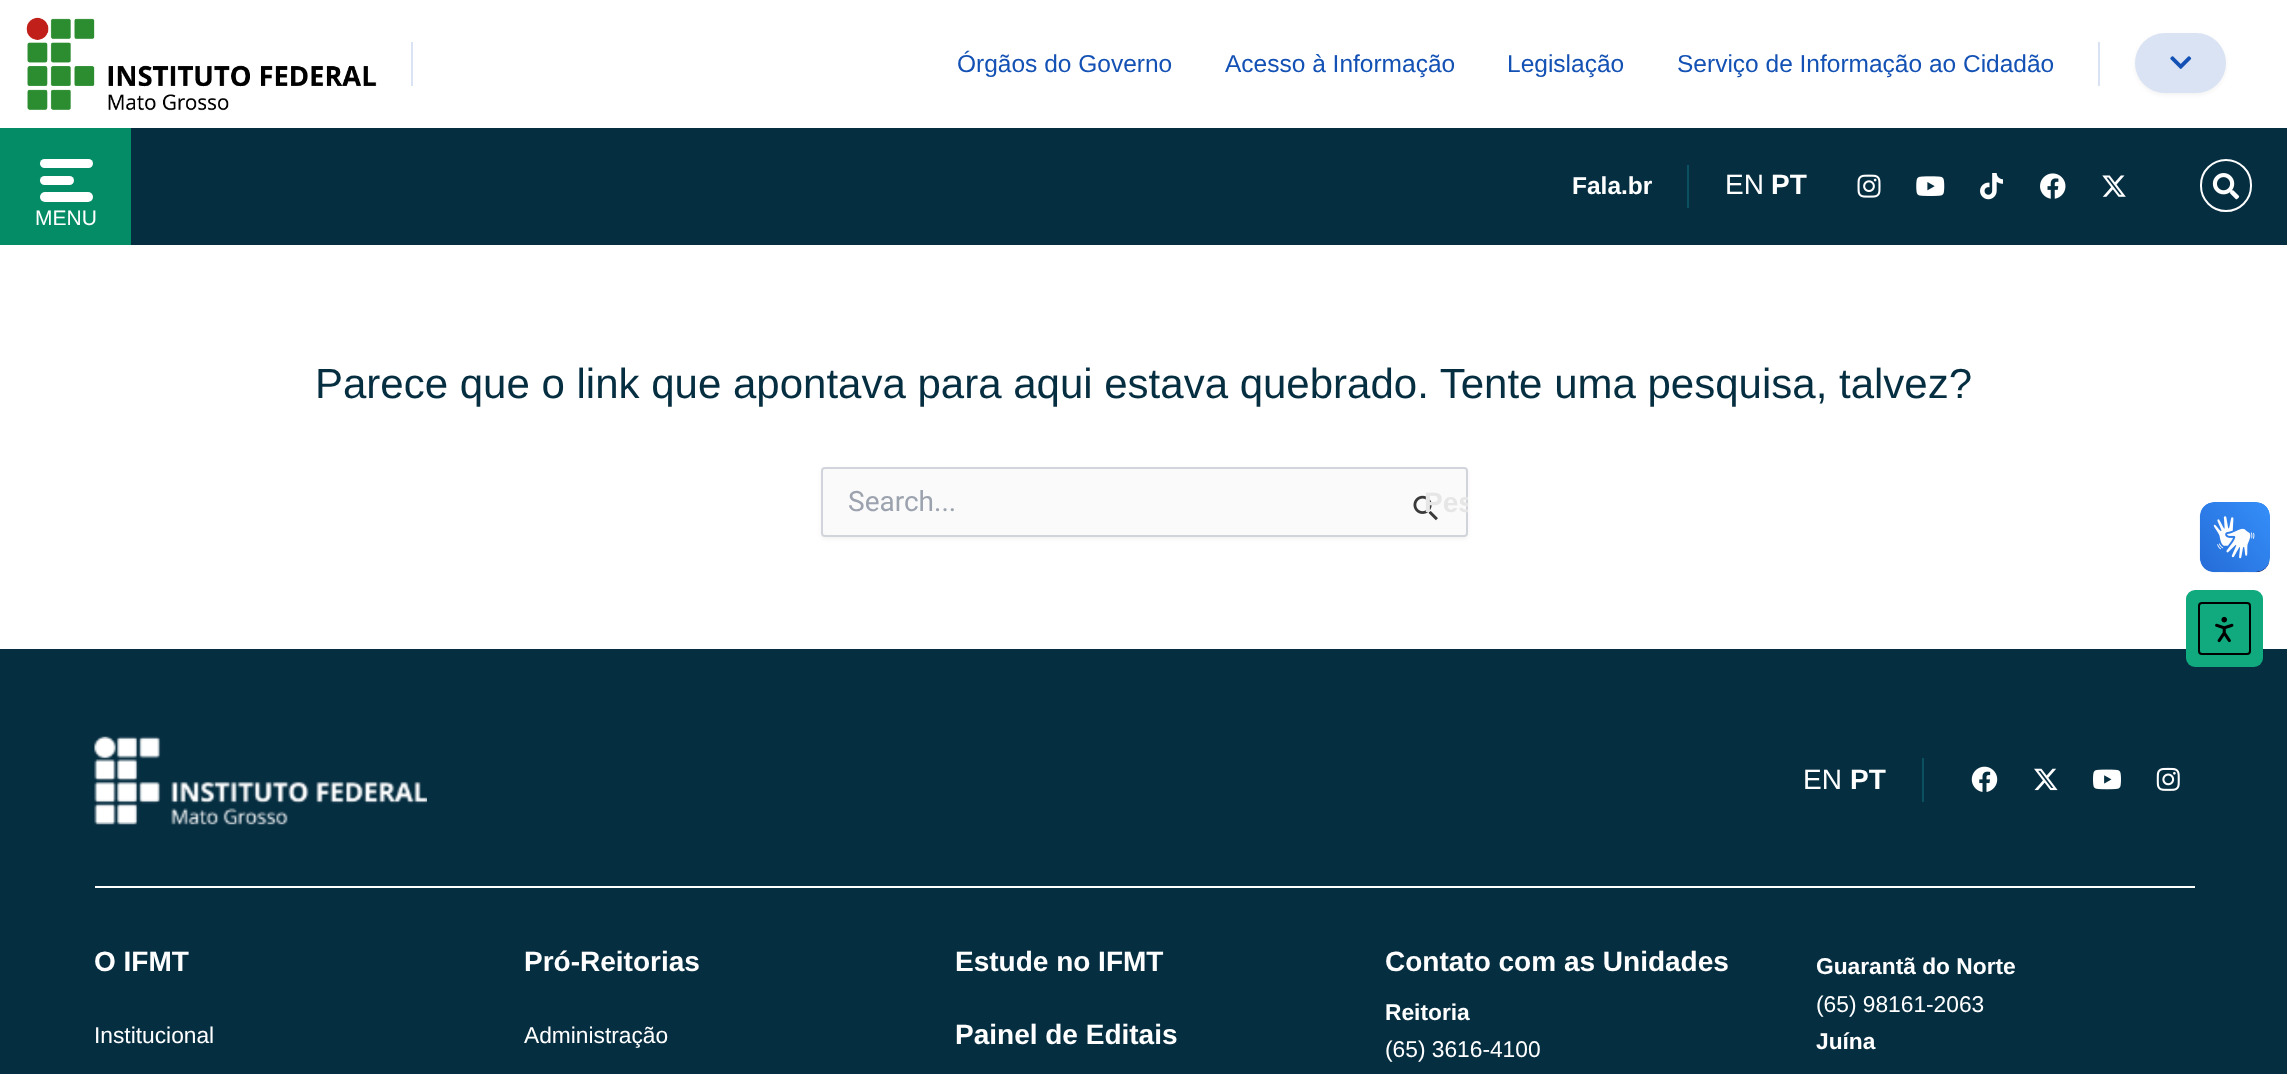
async function draw(canvas) {
	canvas.width = 2287;
	canvas.height = 1074;
	const c = canvas.getContext('2d');
	c.miterLimit = 4;
	c.fontKerning = 'normal';
	async function loadImage(src) {
		const img = new Image();
		img.src = src;
		await img.decode();
		return img;
	}

	c.fillStyle = '#fff';
	c.fillRect(0, 0, 2287, 1074);
	c.drawImage(await loadImage('img1.png'), 26, 17, 351, 94);
	c.fillStyle = '#d9e3f3';
	c.fillRect(411, 42, 2, 44);
	c.font = '24.5px Liberation Sans';
	c.fillStyle = '#1351b4';
	for (const [text, x, y] of [
		['Órgãos do Governo', 957, 72],
		['Acesso à Informação', 1225, 72],
		['Legislação', 1507, 72],
		['Serviço de Informação ao Cidadão', 1677, 72],
	]) {
		c.fillText(text, x, y);
	}
	c.fillStyle = '#d9e3f3';
	c.fillRect(2098, 42, 2, 44);
	c.fillStyle = '#0000000d';
	c.filter = 'blur(2px)';
	c.beginPath();
	c.roundRect(2135, 35, 91, 60, 30);
	c.fill();
	c.filter = 'none';
	c.fillStyle = '#d9e3f3';
	c.beginPath();
	c.roundRect(2135, 33, 91, 60, 30);
	c.fill();
	c.drawImage(await loadImage('img2.png'), 2170, 56, 22, 13);
	c.fillStyle = '#062e41';
	c.fillRect(131, 128, 2156, 117);
	c.font = 'bold 24.5px Liberation Sans';
	c.fillStyle = '#fff';
	c.fillText('Fala.br', 1572, 194);
	c.fillStyle = '#0b5060';
	c.fillRect(1687, 165, 2, 43);
	c.font = '28px Liberation Sans';
	c.fillStyle = '#fff';
	c.fillText('EN', 1725, 194);
	c.font = 'bold 28px Liberation Sans';
	c.fillText('PT', 1771, 194);
	c.drawImage(await loadImage('img3.png'), 1857, 174, 24, 24);
	c.drawImage(await loadImage('img4.png'), 1916, 176, 29, 20);
	c.drawImage(await loadImage('img5.png'), 1980, 173, 23, 27);
	c.drawImage(await loadImage('img6.png'), 2040, 173, 26, 26);
	c.drawImage(await loadImage('img7.png'), 2102, 175, 24, 22);
	c.beginPath();
	c.roundRect(2201, 160, 50, 51, 25);
	c.strokeStyle = '#fff';
	c.lineWidth = 2;
	c.stroke();
	c.drawImage(await loadImage('img8.png'), 2212, 173, 28, 27);
	c.fillStyle = '#048c66';
	c.fillRect(0, 128, 131, 117);
	c.fillStyle = '#fff';
	c.beginPath();
	c.roundRect(40, 159, 53, 9, 4.5);
	c.fill();
	c.beginPath();
	c.roundRect(40, 176, 34, 9, 4.5);
	c.fill();
	c.beginPath();
	c.roundRect(40, 192, 53, 10, 5);
	c.fill();
	c.font = '21px Liberation Sans';
	c.fillText('MENU', 35, 225);
	c.font = '42px Liberation Sans';
	c.fillStyle = '#062e41';
	c.fillText('Parece que o link que apontava para aqui estava quebrado. Tente uma pesquisa, talvez?', 315, 398);
	c.fillStyle = '#0000000d';
	c.filter = 'blur(2px)';
	c.beginPath();
	c.roundRect(821, 469, 647, 70, 4);
	c.fill();
	c.filter = 'none';
	c.fillStyle = '#fafafa';
	c.beginPath();
	c.roundRect(822, 468, 645, 68, 3);
	c.fill();
	c.strokeStyle = '#d1d5db';
	c.stroke();
	c.font = '28px Roboto';
	c.fillStyle = '#9ca3af';
	c.fillText('Search...', 848, 511);
	c.drawImage(await loadImage('img9.png'), 1413, 495, 25, 26);
	c.save();
	c.beginPath();
	c.roundRect(1390, 467, 78, 74, 4);
	c.clip();
	c.font = 'bold 28px Liberation Sans';
	c.fillStyle = '#e6e6e6';
	c.fillText('Pes', 1424, 512);
	c.restore();
	c.fillStyle = '#062e41';
	c.fillRect(0, 649, 2287, 425);
	c.drawImage(await loadImage('img10.png'), 94, 736, 333, 89);
	c.font = '28px Liberation Sans';
	c.fillStyle = '#fff';
	c.fillText('EN', 1803, 789);
	c.font = 'bold 28px Liberation Sans';
	c.fillText('PT', 1850, 789);
	c.fillStyle = '#0b5060';
	c.fillRect(1922, 758, 2, 44);
	c.drawImage(await loadImage('img11.png'), 1971, 766, 27, 26);
	c.drawImage(await loadImage('img12.png'), 2034, 768, 24, 23);
	c.drawImage(await loadImage('img13.png'), 2093, 769, 28, 21);
	c.drawImage(await loadImage('img14.png'), 2156, 767, 24, 24);
	c.fillStyle = '#fff';
	c.fillRect(95, 886, 2100, 2);
	c.fillText('O IFMT', 94, 971);
	c.font = '22.75px Liberation Sans';
	c.fillText('Institucional', 94, 1043);
	c.font = 'bold 28px Liberation Sans';
	c.fillText('Pró-Reitorias', 524, 971);
	c.font = '22.75px Liberation Sans';
	c.fillText('Administração', 524, 1043);
	c.font = 'bold 28px Liberation Sans';
	for (const [text, x, y] of [
		['Estude no IFMT', 955, 971],
		['Painel de Editais', 955, 1044],
		['Contato com as Unidades', 1385, 971],
	]) {
		c.fillText(text, x, y);
	}
	c.font = 'bold 22.75px Liberation Sans';
	c.fillText('Reitoria', 1385, 1020);
	c.font = '22.75px Liberation Sans';
	c.fillText('(65) 3616-4100', 1385, 1057);
	c.font = 'bold 22.75px Liberation Sans';
	c.fillText('Guarantã do Norte', 1816, 974);
	c.font = '22.75px Liberation Sans';
	c.fillText('(65) 98161-2063', 1816, 1012);
	c.font = 'bold 22.75px Liberation Sans';
	c.fillText('Juína', 1816, 1049);
	c.drawImage(await loadImage('img15.png'), 2199, 502, 71, 71);
	c.drawImage(await loadImage('img16.png'), 2200, 502, 70, 70);
	c.fillStyle = '#10aa7e';
	c.beginPath();
	c.roundRect(2186, 590, 77, 77, 9);
	c.fill();
	c.beginPath();
	c.roundRect(2199, 603, 51, 51, 3);
	c.strokeStyle = '#000';
	c.stroke();
	c.drawImage(await loadImage('img17.png'), 2215, 616, 19, 27);
}

draw(document.querySelector('canvas'));
